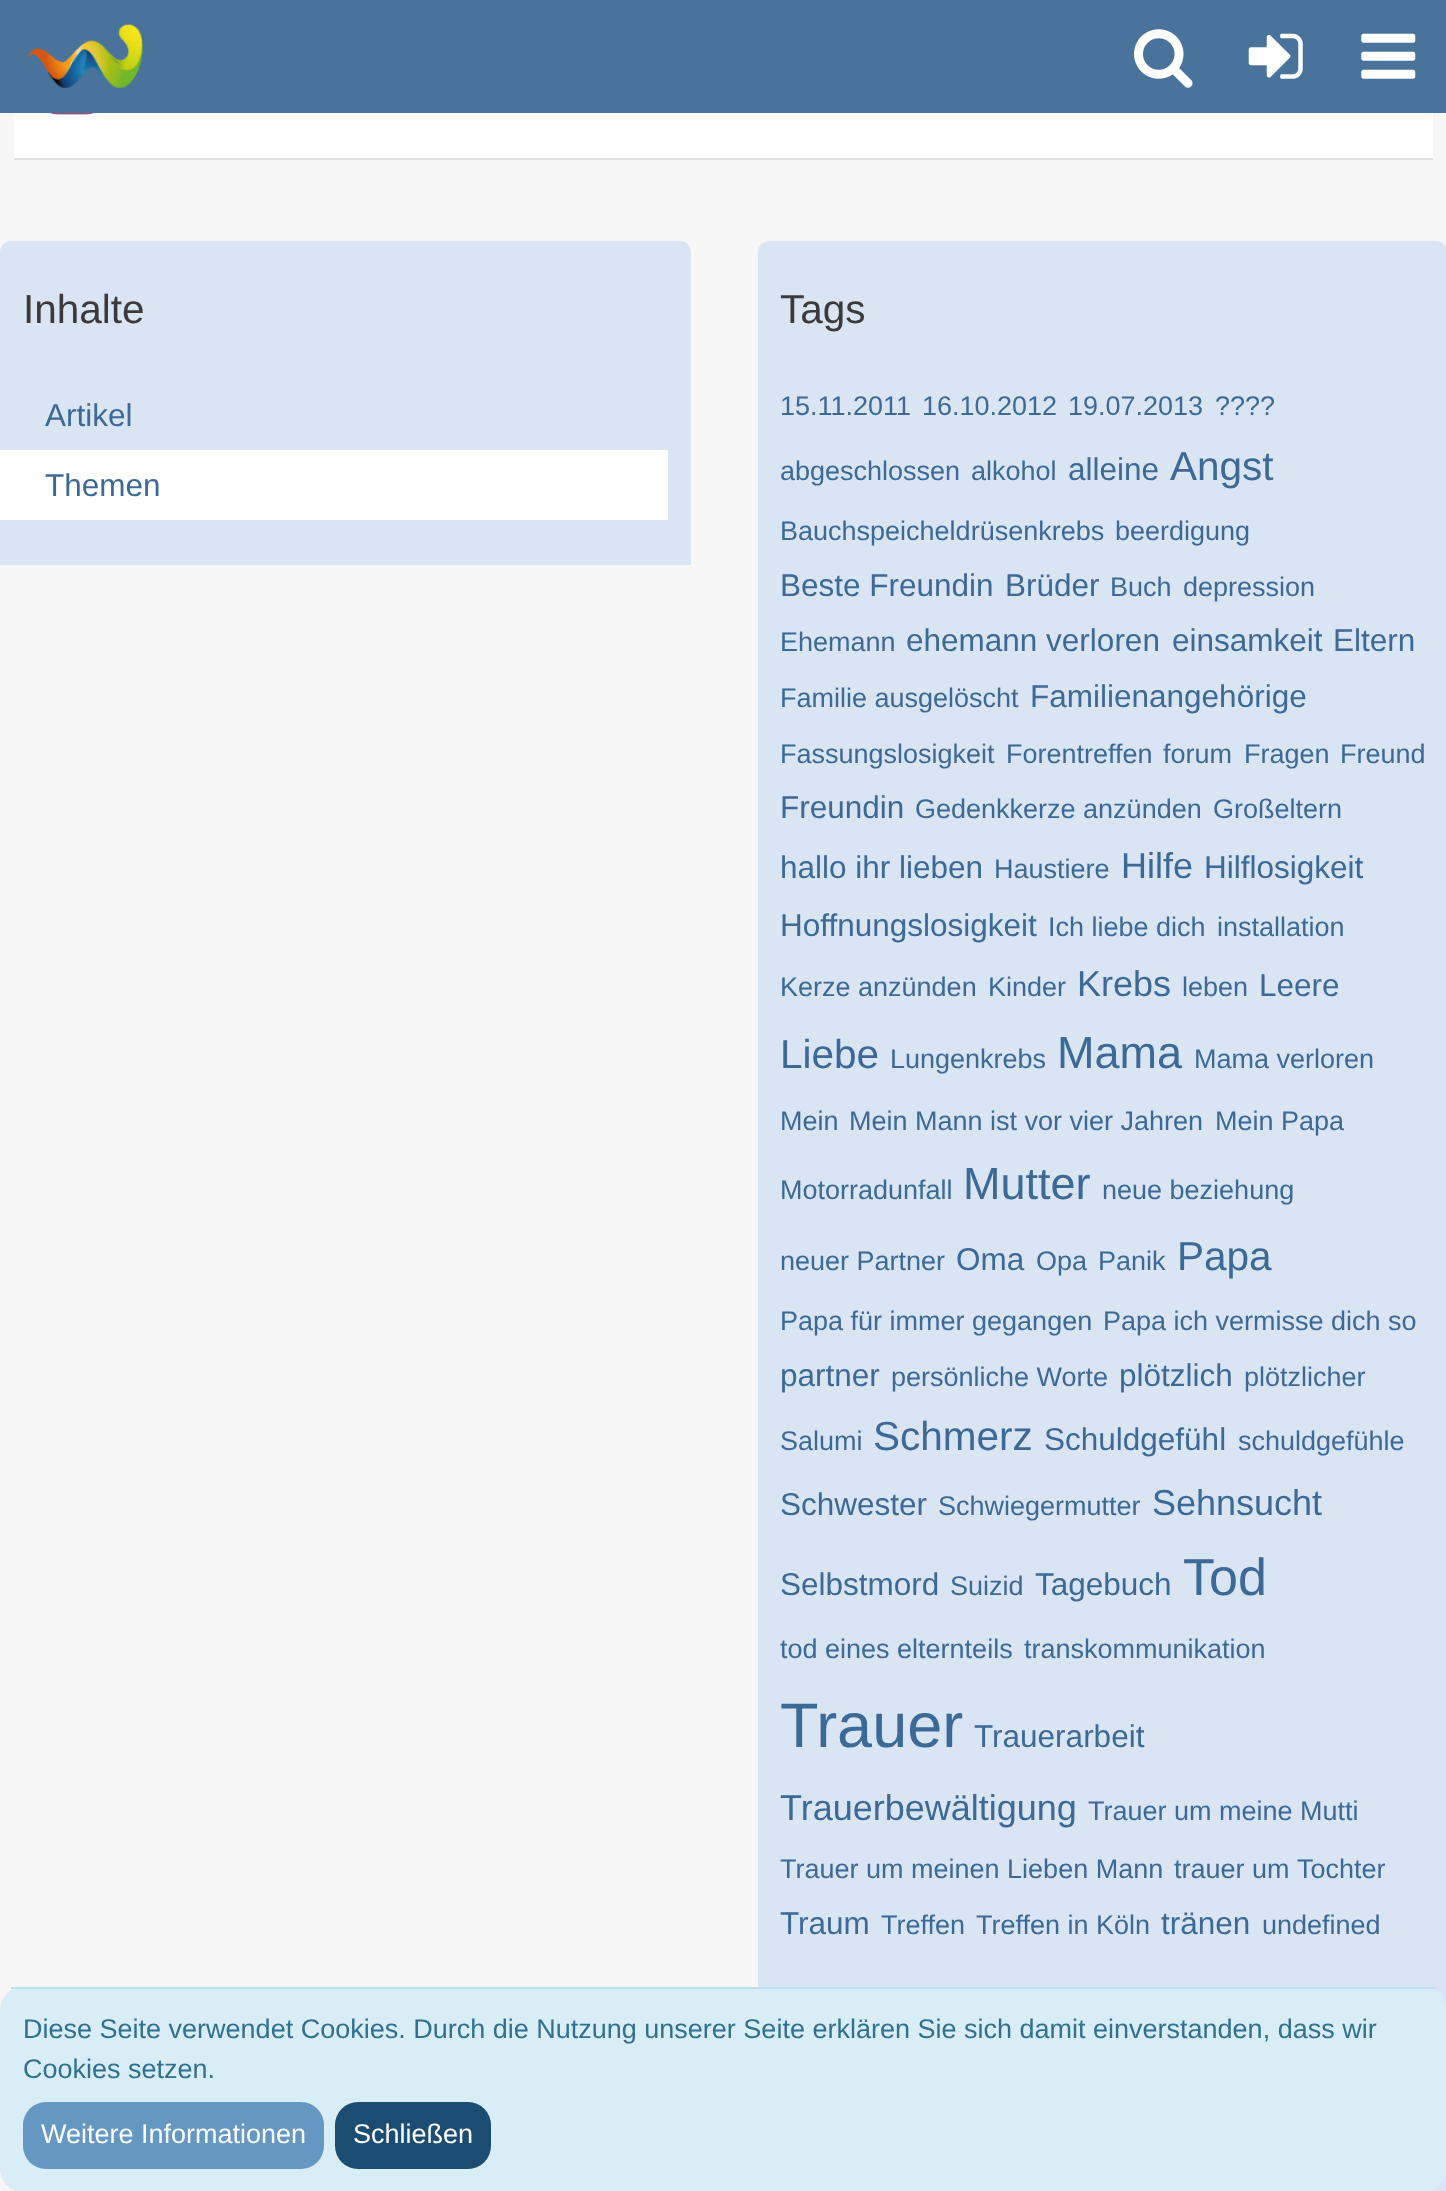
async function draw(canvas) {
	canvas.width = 1446;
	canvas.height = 2191;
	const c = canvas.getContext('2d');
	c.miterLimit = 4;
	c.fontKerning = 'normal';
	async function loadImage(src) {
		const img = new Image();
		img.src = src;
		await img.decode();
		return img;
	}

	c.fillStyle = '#f7f7f7';
	c.fillRect(0, 0, 1446, 2191);
	c.fillStyle = '#49739b';
	c.fillRect(0, 0, 1446, 113);
	c.drawImage(await loadImage('img1.png'), 27, 24, 116, 64);
	c.drawImage(await loadImage('img2.png'), 1134, 29, 59, 59);
	c.drawImage(await loadImage('img3.png'), 1248, 33, 55, 46);
	c.drawImage(await loadImage('img4.png'), 1361, 33, 55, 46);
	c.fillStyle = '#fff';
	c.fillRect(14, 113, 1419, 45);
	c.fillStyle = '#e0e0e0';
	c.fillRect(14, 158, 1419, 2);
	c.drawImage(await loadImage('img5.png'), 50, 113, 44, 2);
	c.fillStyle = '#d9e5f3';
	c.beginPath();
	c.moveTo(11, 241);
	c.lineTo(680, 241);
	c.bezierCurveTo(686, 241, 691, 246, 691, 252);
	c.lineTo(691, 565);
	c.lineTo(0, 565);
	c.lineTo(0, 252);
	c.bezierCurveTo(0, 246, 5, 241, 11, 241);
	c.closePath();
	c.fill();
	c.font = '40.5px Liberation Sans';
	c.fillStyle = '#3a3a3d';
	c.fillText('Inhalte', 23, 323);
	c.font = '31.5px Liberation Sans';
	c.fillStyle = '#3d6996';
	c.fillText('Artikel', 45, 426);
	c.fillStyle = '#fff';
	c.fillRect(0, 450, 668, 70);
	c.fillStyle = '#3d6996';
	c.fillText('Themen', 45, 496);
	c.fillStyle = '#d9e5f3';
	c.beginPath();
	c.moveTo(770, 241);
	c.lineTo(1436, 241);
	c.bezierCurveTo(1442, 241, 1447, 246, 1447, 252);
	c.lineTo(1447, 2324);
	c.lineTo(758, 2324);
	c.lineTo(758, 252);
	c.bezierCurveTo(758, 246, 763, 241, 770, 241);
	c.closePath();
	c.fill();
	c.font = '40.5px Liberation Sans';
	c.fillStyle = '#3a3a3d';
	c.fillText('Tags', 780, 323);
	c.font = '27px Liberation Sans';
	c.fillStyle = '#3d6996';
	for (const [text, x, y] of [
		['15.11.2011', 780, 415],
		['16.10.2012', 922, 415],
		['19.07.2013', 1068, 415],
		['????', 1215, 415],
		['abgeschlossen', 780, 480],
		['alkohol', 971, 480],
	]) {
		c.fillText(text, x, y);
	}
	c.font = '31.5px Liberation Sans';
	c.fillText('alleine', 1068, 480);
	c.font = '40.5px Liberation Sans';
	c.fillText('Angst', 1170, 480);
	c.font = '27px Liberation Sans';
	c.fillText('Bauchspeicheldrüsenkrebs', 780, 540);
	c.fillText('beerdigung', 1115, 540);
	c.font = '31.5px Liberation Sans';
	c.fillText('Beste Freundin', 780, 596);
	c.fillText('Brüder', 1005, 596);
	c.font = '27px Liberation Sans';
	for (const [text, x, y] of [
		['Buch', 1110, 596],
		['depression', 1183, 596],
		['Ehemann', 780, 651],
	]) {
		c.fillText(text, x, y);
	}
	c.font = '31.5px Liberation Sans';
	for (const [text, x, y] of [
		['ehemann verloren', 906, 651],
		['einsamkeit', 1172, 651],
		['Eltern', 1333, 651],
	]) {
		c.fillText(text, x, y);
	}
	c.font = '27px Liberation Sans';
	c.fillText('Familie ausgelöscht', 780, 707);
	c.font = '31.5px Liberation Sans';
	c.fillText('Familienangehörige', 1030, 707);
	c.font = '27px Liberation Sans';
	for (const [text, x, y] of [
		['Fassungslosigkeit', 780, 763],
		['Forentreffen', 1006, 763],
		['forum', 1163, 763],
		['Fragen', 1244, 763],
		['Freund', 1340, 763],
	]) {
		c.fillText(text, x, y);
	}
	c.font = '31.5px Liberation Sans';
	c.fillText('Freundin', 780, 818);
	c.font = '27px Liberation Sans';
	c.fillText('Gedenkkerze anzünden', 915, 818);
	c.fillText('Großeltern', 1213, 818);
	c.font = '31.5px Liberation Sans';
	c.fillText('hallo ihr lieben', 780, 878);
	c.font = '27px Liberation Sans';
	c.fillText('Haustiere', 994, 878);
	c.font = '36px Liberation Sans';
	c.fillText('Hilfe', 1121, 878);
	c.font = '31.5px Liberation Sans';
	c.fillText('Hilflosigkeit', 1204, 878);
	c.fillText('Hoffnungslosigkeit', 780, 936);
	c.font = '27px Liberation Sans';
	for (const [text, x, y] of [
		['Ich liebe dich', 1048, 936],
		['installation', 1217, 936],
		['Kerze anzünden', 780, 996],
		['Kinder', 988, 996],
	]) {
		c.fillText(text, x, y);
	}
	c.font = '36px Liberation Sans';
	c.fillText('Krebs', 1077, 996);
	c.font = '27px Liberation Sans';
	c.fillText('leben', 1182, 996);
	c.font = '31.5px Liberation Sans';
	c.fillText('Leere', 1259, 996);
	c.font = '40.5px Liberation Sans';
	c.fillText('Liebe', 780, 1068);
	c.font = '27px Liberation Sans';
	c.fillText('Lungenkrebs', 890, 1068);
	c.font = '45px Liberation Sans';
	c.fillText('Mama', 1057, 1068);
	c.font = '27px Liberation Sans';
	for (const [text, x, y] of [
		['Mama verloren', 1194, 1068],
		['Mein', 780, 1130],
		['Mein Mann ist vor vier Jahren', 849, 1130],
		['Mein Papa', 1215, 1130],
		['Motorradunfall', 780, 1199],
	]) {
		c.fillText(text, x, y);
	}
	c.font = '45px Liberation Sans';
	c.fillText('Mutter', 963, 1199);
	c.font = '27px Liberation Sans';
	c.fillText('neue beziehung', 1102, 1199);
	c.fillText('neuer Partner', 780, 1270);
	c.font = '31.5px Liberation Sans';
	c.fillText('Oma', 956, 1270);
	c.font = '27px Liberation Sans';
	c.fillText('Opa', 1036, 1270);
	c.fillText('Panik', 1098, 1270);
	c.font = '40.5px Liberation Sans';
	c.fillText('Papa', 1177, 1270);
	c.font = '27px Liberation Sans';
	c.fillText('Papa für immer gegangen', 780, 1330);
	c.fillText('Papa ich vermisse dich so', 1103, 1330);
	c.font = '31.5px Liberation Sans';
	c.fillText('partner', 780, 1386);
	c.font = '27px Liberation Sans';
	c.fillText('persönliche Worte', 891, 1386);
	c.font = '31.5px Liberation Sans';
	c.fillText('plötzlich', 1119, 1386);
	c.font = '27px Liberation Sans';
	c.fillText('plötzlicher', 1244, 1386);
	c.fillText('Salumi', 780, 1450);
	c.font = '40.5px Liberation Sans';
	c.fillText('Schmerz', 873, 1450);
	c.font = '31.5px Liberation Sans';
	c.fillText('Schuldgefühl', 1044, 1450);
	c.font = '27px Liberation Sans';
	c.fillText('schuldgefühle', 1238, 1450);
	c.font = '31.5px Liberation Sans';
	c.fillText('Schwester', 780, 1515);
	c.font = '27px Liberation Sans';
	c.fillText('Schwiegermutter', 938, 1515);
	c.font = '36px Liberation Sans';
	c.fillText('Sehnsucht', 1152, 1515);
	c.font = '31.5px Liberation Sans';
	c.fillText('Selbstmord', 780, 1595);
	c.font = '27px Liberation Sans';
	c.fillText('Suizid', 950, 1595);
	c.font = '31.5px Liberation Sans';
	c.fillText('Tagebuch', 1035, 1595);
	c.font = '52px Liberation Sans';
	c.fillText('Tod', 1183, 1595);
	c.font = '27px Liberation Sans';
	c.fillText('tod eines elternteils', 780, 1658);
	c.fillText('transkommunikation', 1024, 1658);
	c.font = '63px Liberation Sans';
	c.fillText('Trauer', 780, 1747);
	c.font = '31.5px Liberation Sans';
	c.fillText('Trauerarbeit', 974, 1747);
	c.font = '36px Liberation Sans';
	c.fillText('Trauerbewältigung', 780, 1820);
	c.font = '27px Liberation Sans';
	for (const [text, x, y] of [
		['Trauer um meine Mutti', 1088, 1820],
		['Trauer um meinen Lieben Mann', 780, 1878],
		['trauer um', 1174, 1878],
		['Tochter', 1297, 1878],
	]) {
		c.fillText(text, x, y);
	}
	c.font = '31.5px Liberation Sans';
	c.fillText('Traum', 780, 1934);
	c.font = '27px Liberation Sans';
	c.fillText('Treffen', 881, 1934);
	c.fillText('Treffen in Köln', 976, 1934);
	c.font = '31.5px Liberation Sans';
	c.fillText('tränen', 1161, 1934);
	c.font = '27px Liberation Sans';
	c.fillText('undefined', 1262, 1934);
	c.fillStyle = '#d9edf7';
	c.beginPath();
	c.roundRect(0, 1987, 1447, 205, 23);
	c.fill();
	c.fillStyle = '#bcdff1';
	c.fillRect(11, 1987, 1425, 2);
	c.fillStyle = '#31708f';
	c.fillText('Diese Seite verwendet Cookies. Durch die Nutzung unserer Seite erklären Sie sich damit einverstanden, dass wir', 23, 2038);
	c.fillText('Cookies setzen.', 23, 2078);
	c.fillStyle = '#6497c2';
	c.beginPath();
	c.roundRect(23, 2102, 301, 67, 23);
	c.fill();
	c.fillStyle = '#fff';
	c.fillText('Weitere Informationen', 41, 2143);
	c.fillStyle = '#1b4d72';
	c.beginPath();
	c.roundRect(335, 2102, 156, 67, 23);
	c.fill();
	c.fillStyle = '#fff';
	c.fillText('Schließen', 353, 2143);
}

draw(document.querySelector('canvas'));
